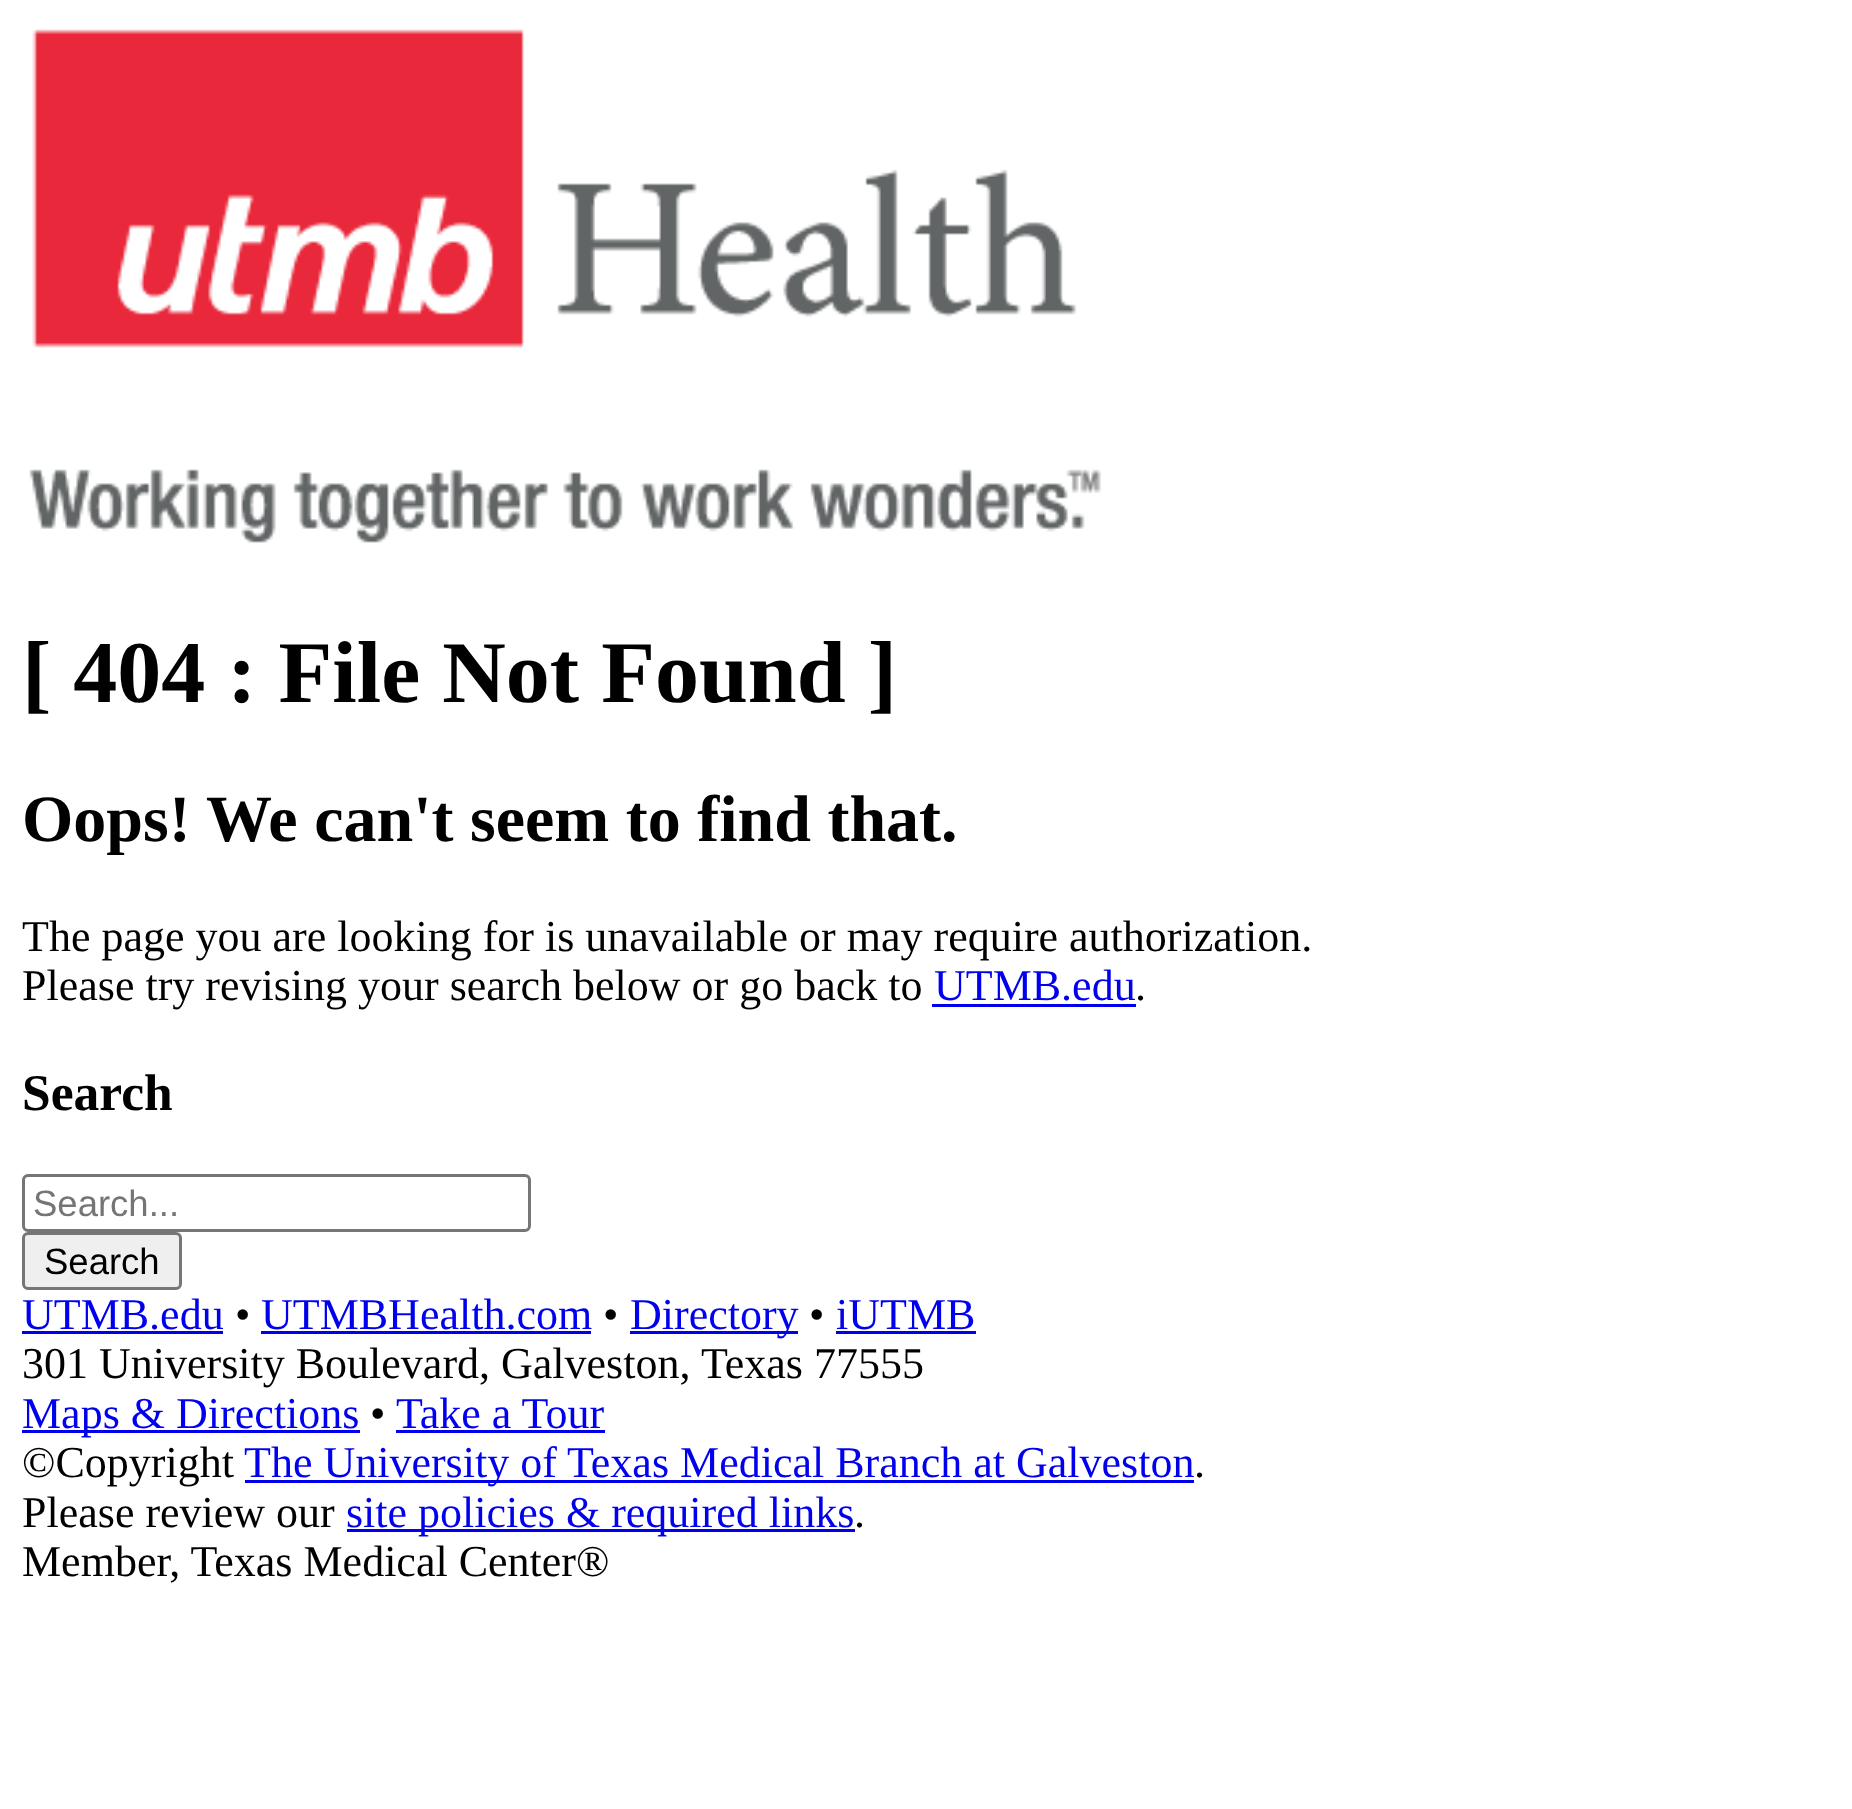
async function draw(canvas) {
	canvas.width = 1852;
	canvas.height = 1809;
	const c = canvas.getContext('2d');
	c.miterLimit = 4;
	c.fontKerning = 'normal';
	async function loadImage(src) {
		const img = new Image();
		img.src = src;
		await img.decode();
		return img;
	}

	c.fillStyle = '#fff';
	c.fillRect(0, 0, 1852, 1809);
	c.drawImage(await loadImage('img1.png'), 29, 29, 1072, 514);
	c.font = 'bold 88px Liberation Serif';
	c.fillStyle = '#000';
	c.fillText('[ 404 : File Not Found ]', 22, 702);
	c.font = 'bold 66px Liberation Serif';
	c.fillText('Oops! We can\'t seem to find that.', 22, 841);
	c.font = '44px Liberation Serif';
	c.fillText('The page you are looking for is unavailable or may require authorization.', 22, 951);
	c.fillText('Please try revising your search below or go back to', 22, 1000);
	c.fillStyle = '#00e';
	c.fillText('UTMB.edu', 934, 1000);
	c.fillRect(932, 1004, 204, 3);
	c.fillStyle = '#000';
	c.fillText('.', 1135, 1000);
	c.font = 'bold 51.5px Liberation Serif';
	c.fillText('Search', 22, 1110);
	c.beginPath();
	c.roundRect(23.5, 1175.5, 506, 55, 4.5);
	c.strokeStyle = '#767676';
	c.lineWidth = 3;
	c.stroke();
	c.font = '36.5px Liberation Sans';
	c.fillStyle = '#757575';
	c.fillText('Search...', 33, 1216);
	c.fillStyle = '#efefef';
	c.beginPath();
	c.roundRect(23.5, 1233.5, 157, 55, 4.5);
	c.fill();
	c.stroke();
	c.fillStyle = '#000';
	c.fillText('Search', 44, 1274);
	c.font = '44px Liberation Serif';
	c.fillStyle = '#00e';
	c.fillText('UTMB.edu', 22, 1329);
	c.fillRect(22, 1331, 201, 3);
	c.fillStyle = '#000';
	c.fillText('•', 235, 1329);
	c.fillStyle = '#00e';
	c.fillText('UTMBHealth.com', 261, 1329);
	c.fillRect(261, 1331, 330, 3);
	c.fillStyle = '#000';
	c.fillText('•', 603, 1329);
	c.fillStyle = '#00e';
	c.fillRect(630, 1331, 168, 3);
	c.fillText('Directory', 630, 1329);
	c.fillStyle = '#000';
	c.fillText('•', 809, 1329);
	c.fillStyle = '#00e';
	c.fillText('iUTMB', 836, 1329);
	c.fillRect(836, 1331, 140, 3);
	c.fillStyle = '#000';
	c.fillText('301 University Boulevard, Galveston,', 22, 1378);
	c.fillText('Texas 77555', 701, 1378);
	c.fillStyle = '#00e';
	c.fillRect(22, 1430, 338, 3);
	c.fillText('Maps & Directions', 22, 1428);
	c.fillStyle = '#000';
	c.fillText('•', 370, 1428);
	c.fillStyle = '#00e';
	c.fillText('Take a Tour', 396, 1428);
	c.fillRect(396, 1430, 209, 3);
	c.fillStyle = '#000';
	c.fillText('©Copyright', 22, 1477);
	c.fillStyle = '#00e';
	c.fillRect(245, 1480, 949, 3);
	c.fillText('The University of Texas Medical Branch at Galveston', 244, 1477);
	c.fillStyle = '#000';
	c.fillText('.', 1194, 1477);
	c.fillText('Please review our', 22, 1527);
	c.fillStyle = '#00e';
	c.fillRect(347, 1529, 508, 3);
	c.fillText('site policies & required links', 346, 1527);
	c.fillStyle = '#000';
	c.fillText('.', 854, 1527);
	c.fillText('Member, Texas Medical Center®', 22, 1576);
}

draw(document.querySelector('canvas'));
